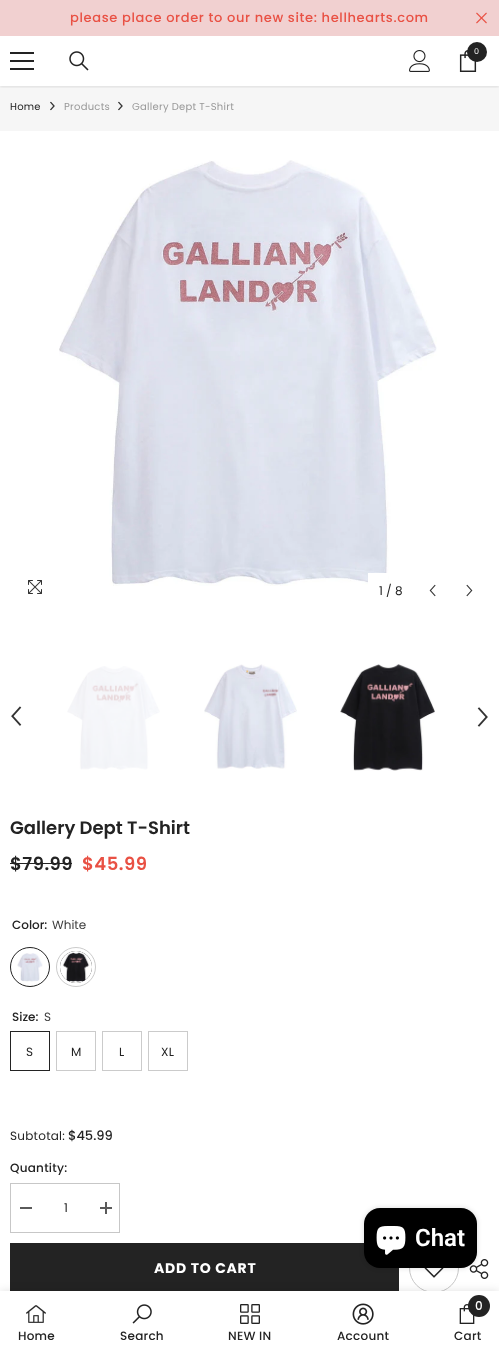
async function draw(canvas) {
	canvas.width = 499;
	canvas.height = 1353;
	const c = canvas.getContext('2d');
	c.miterLimit = 4;
	c.fontKerning = 'normal';
	async function loadImage(src) {
		const img = new Image();
		img.src = src;
		await img.decode();
		return img;
	}

	c.fillStyle = '#fff';
	c.fillRect(0, 0, 499, 1353);
	c.fillStyle = '#f1d0d0';
	c.fillRect(0, 0, 499, 36);
	c.letterSpacing = '0.65px';
	c.font = '500 13px Poppins';
	c.fillStyle = '#e95144';
	c.fillText('please place order to our new site: hellhearts.com', 70, 22);
	c.drawImage(await loadImage('img1.png'), 476, 12, 11, 12);
	c.fillStyle = '#f6f6f6';
	c.fillRect(0, 86, 499, 45);
	c.save();
	c.beginPath();
	c.rect(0, 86, 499, 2);
	c.clip();
	c.fillStyle = '#0000001a';
	c.filter = 'blur(1.5px)';
	c.beginPath();
	c.rect(0, 37, 499, 50);
	c.fill();
	c.filter = 'none';
	c.restore();
	for (const [x, y, w, h, color] of [
		[10, 60, 24, 2, '#232323'],
		[10, 52, 24, 2, '#232323'],
		[10, 68, 24, 2, '#232323'],
	]) {
		c.fillStyle = color;
		c.fillRect(x, y, w, h);
	}
	c.drawImage(await loadImage('img2.png'), 69, 51, 20, 20);
	c.drawImage(await loadImage('img3.png'), 409, 50, 21, 22);
	c.drawImage(await loadImage('img4.png'), 459, 50, 18, 22);
	c.beginPath();
	c.arc(477, 52, 10, 0, 2 * Math.PI);
	c.fill();
	c.letterSpacing = '0px';
	c.font = '8px Poppins';
	c.fillStyle = '#fff';
	c.fillText('0', 474, 54);
	c.letterSpacing = '0.25px';
	c.font = '10px Poppins';
	c.fillStyle = '#232323';
	c.fillText('Home', 10, 110);
	c.drawImage(await loadImage('img5.png'), 50, 101, 5, 10);
	c.fillStyle = '#999';
	c.fillText('Products', 64, 110);
	c.drawImage(await loadImage('img5.png'), 118, 101, 5, 10);
	c.fillText('Gallery Dept T-Shirt', 132, 110);
	c.drawImage(await loadImage('img6.png'), 28, 580, 14, 14);
	c.drawImage(await loadImage('img7.png'), 59, 160, 378, 426);
	c.fillStyle = '#fff';
	c.fillRect(368, 573, 20, 13);
	c.letterSpacing = '0px';
	c.font = '12px Poppins';
	c.fillStyle = '#232323';
	c.fillText('1 / 8', 379, 595);
	c.drawImage(await loadImage('img8.png'), 429, 584, 7, 13);
	c.drawImage(await loadImage('img9.png'), 466, 584, 7, 13);
	c.drawImage(await loadImage('img10.png'), 11, 706, 11, 20);
	c.drawImage(await loadImage('img11.png'), 67, 666, 93, 104);
	c.drawImage(await loadImage('img12.png'), 204, 664, 93, 105);
	c.drawImage(await loadImage('img13.png'), 340, 664, 95, 107);
	c.drawImage(await loadImage('img14.png'), 477, 707, 11, 20);
	c.font = '600 18px Poppins';
	c.fillText('Gallery Dept T-Shirt', 10, 834);
	c.letterSpacing = '0.5px';
	c.fillText('$79.99', 10, 870);
	c.fillRect(10, 863, 62, 1);
	c.fillStyle = '#e95144';
	c.fillText('$45.99', 82, 870);
	c.letterSpacing = '0px';
	c.font = '500 12px Poppins';
	c.fillStyle = '#232323';
	c.fillText('Color:', 12, 929);
	c.font = '12px Poppins';
	c.fillStyle = '#3c3c3c';
	c.fillText('White', 52, 929);
	c.beginPath();
	c.arc(30, 967, 19.5, 0, 2 * Math.PI);
	c.strokeStyle = '#232323';
	c.stroke();
	c.drawImage(await loadImage('img15.png'), 17, 953, 26, 29);
	c.beginPath();
	c.arc(76, 967, 19.5, 0, 2 * Math.PI);
	c.strokeStyle = '#cbcbcb';
	c.stroke();
	c.fillStyle = '#000';
	c.beginPath();
	c.arc(76, 967, 16, 0, 2 * Math.PI);
	c.fill();
	c.drawImage(await loadImage('img16.png'), 60, 951, 32, 32);
	c.font = '500 12px Poppins';
	c.fillStyle = '#232323';
	c.fillText('Size:', 12, 1021);
	c.font = '12px Poppins';
	c.fillStyle = '#3c3c3c';
	c.fillText('S', 44, 1021);
	c.strokeStyle = '#232323';
	c.strokeRect(10.5, 1031.5, 39, 39);
	c.letterSpacing = '0.25px';
	c.fillStyle = '#232323';
	c.fillText('S', 26, 1056);
	c.strokeStyle = '#cbcbcb';
	c.strokeRect(56.5, 1031.5, 39, 39);
	c.fillText('M', 71, 1056);
	c.strokeRect(102.5, 1031.5, 39, 39);
	c.fillText('L', 119, 1056);
	c.strokeRect(148.5, 1031.5, 39, 39);
	c.fillText('XL', 161, 1056);
	c.fillText('Subtotal:', 10, 1140);
	c.letterSpacing = '0px';
	c.font = '500 13px Poppins';
	c.fillText('$45.99', 68, 1140);
	c.letterSpacing = '0.25px';
	c.font = '500 12px Poppins';
	c.fillText('Quantity:', 10, 1172);
	c.strokeStyle = '#c7c7c7';
	c.strokeRect(10.5, 1183.5, 109, 49);
	c.fillStyle = '#5a5a5a';
	c.fillRect(20, 1207, 12, 2);
	c.font = '12px Poppins';
	c.fillStyle = '#232323';
	c.fillText('1', 64, 1212);
	for (const [x, y, w, h, color] of [
		[100, 1207, 12, 2, '#5a5a5a'],
		[105, 1202, 2, 12, '#5a5a5a'],
		[10, 1243, 389, 48, '#232323'],
	]) {
		c.fillStyle = color;
		c.fillRect(x, y, w, h);
	}
	c.letterSpacing = '0.75px';
	c.font = 'bold 14px Poppins';
	c.fillStyle = '#fff';
	c.fillText('ADD TO CART', 154, 1273);
	c.beginPath();
	c.arc(434, 1268, 24.5, 0, 2 * Math.PI);
	c.stroke();
	c.drawImage(await loadImage('img17.png'), 424, 1268, 20, 10);
	c.drawImage(await loadImage('img18.png'), 469, 1259, 20, 20);
	c.fillStyle = '#0000001f';
	c.filter = 'blur(4.5px)';
	c.beginPath();
	c.rect(0, 1291, 499, 62);
	c.fill();
	c.filter = 'none';
	c.fillStyle = '#fff';
	c.fillRect(0, 1291, 499, 62);
	c.drawImage(await loadImage('img19.png'), 26, 1305, 20, 18);
	c.letterSpacing = '0.25px';
	c.font = '500 12px Poppins';
	c.fillStyle = '#232323';
	c.fillText('Home', 18, 1340);
	c.drawImage(await loadImage('img20.png'), 132, 1304, 20, 20);
	c.fillText('Search', 120, 1340);
	c.drawImage(await loadImage('img21.png'), 240, 1304, 20, 20);
	c.fillText('NEW IN', 228, 1340);
	c.drawImage(await loadImage('img22.png'), 352, 1303, 22, 22);
	c.fillText('Account', 337, 1340);
	c.drawImage(await loadImage('img23.png'), 459, 1304, 16, 20);
	c.beginPath();
	c.arc(479, 1306, 11, 0, 2 * Math.PI);
	c.fill();
	c.letterSpacing = '0px';
	c.fillStyle = '#fff';
	c.fillText('0', 475, 1310);
	c.letterSpacing = '0.25px';
	c.fillStyle = '#232323';
	c.fillText('Cart', 454, 1340);
	c.fillStyle = '#00000026';
	c.filter = 'blur(2.5px)';
	c.beginPath();
	c.roundRect(364, 1208, 113, 60, 16);
	c.fill();
	c.filter = 'none';
	c.fillStyle = '#000';
	c.beginPath();
	c.roundRect(364, 1208, 113, 60, 16);
	c.fill();
	c.drawImage(await loadImage('img24.png'), 376, 1226, 30, 29);
	c.letterSpacing = '0px';
	c.font = '600 24px Roboto';
	c.fillStyle = '#fff';
	c.fillText('Chat', 415, 1246);
}

draw(document.querySelector('canvas'));
